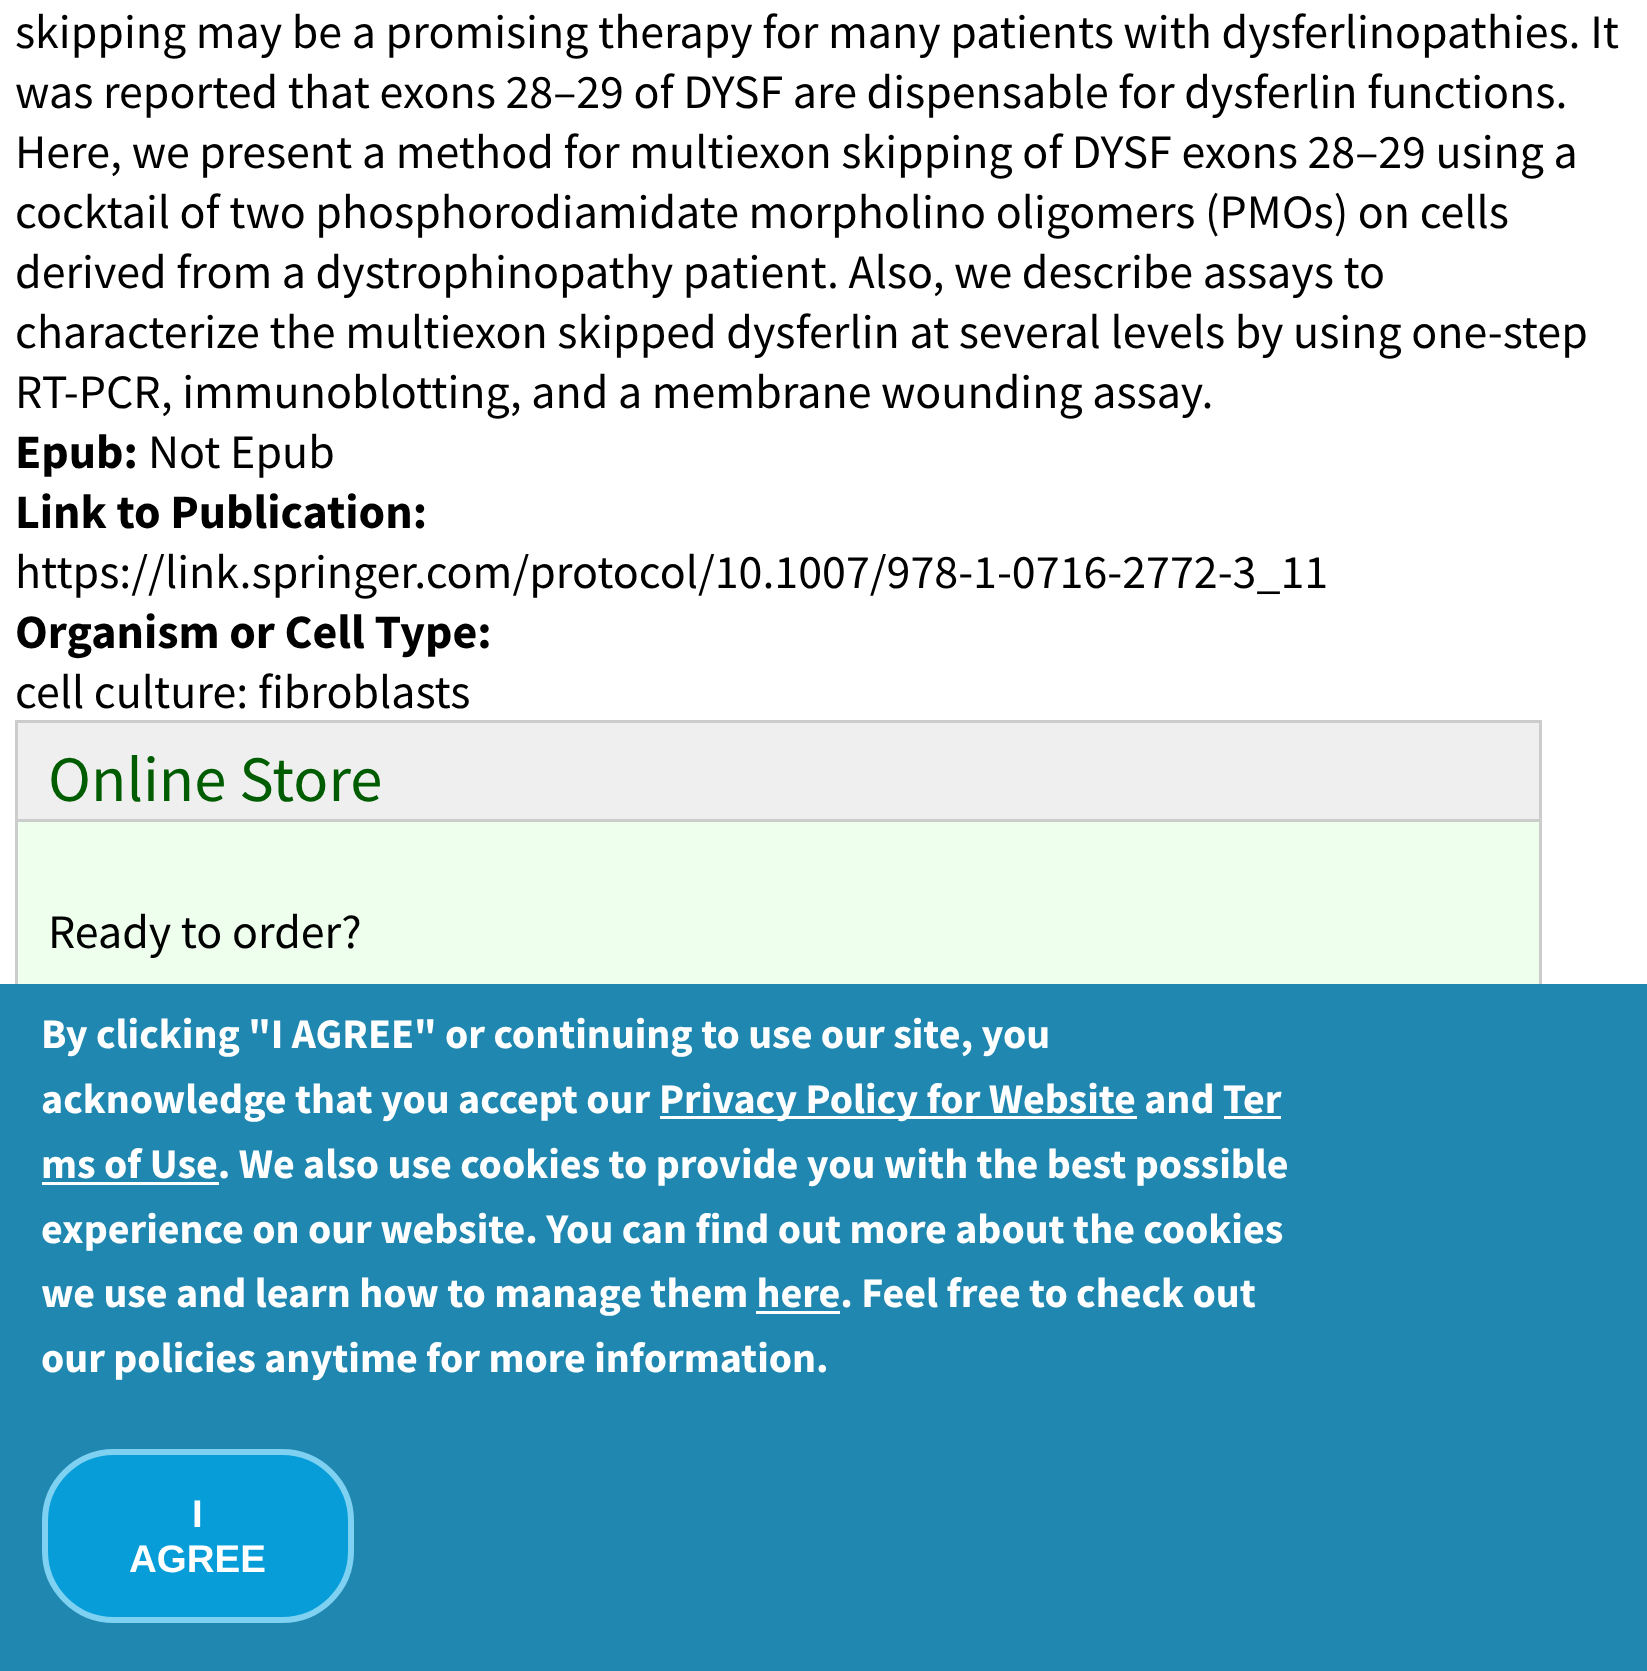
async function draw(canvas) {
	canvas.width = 1647;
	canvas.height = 1671;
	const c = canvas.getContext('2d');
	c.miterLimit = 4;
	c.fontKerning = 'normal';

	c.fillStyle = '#fff';
	c.fillRect(0, 0, 1647, 1671);
	c.font = '48px Source Sans Pro';
	c.fillStyle = '#000';
	for (const [text, x, y] of [
		['skipping may be a promising therapy for many patients with dysferlinopathies. It', 15, 48],
		['was reported that exons 28–29 of DYSF are dispensable for dysferlin functions.', 15, 108],
		['Here, we present a method for multiexon skipping of DYSF exons 28–29 using a', 15, 168],
		['cocktail of two phosphorodiamidate morpholino oligomers (PMOs) on cells', 15, 228],
		['derived from a dystrophinopathy patient. Also, we describe assays to', 15, 288],
		['characterize the multiexon skipped dysferlin at several levels by using one-step', 15, 348],
		['RT-PCR, immunoblotting, and a membrane wounding assay.', 15, 408],
	]) {
		c.fillText(text, x, y);
	}
	c.font = 'bold 48px Source Sans Pro';
	c.fillText('Epub:', 15, 468);
	c.font = '48px Source Sans Pro';
	c.fillText('Not Epub', 148, 468);
	c.font = 'bold 48px Source Sans Pro';
	c.fillText('Link to Publication:', 15, 528);
	c.font = '48px Source Sans Pro';
	c.fillText('https://link.springer.com/protocol/10.1007/978-1-0716-2772-3_11', 15, 588);
	c.font = 'bold 48px Source Sans Pro';
	c.fillText('Organism or Cell Type:', 15, 648);
	c.font = '48px Source Sans Pro';
	c.fillText('cell culture: fibroblasts', 15, 708);
	c.fillStyle = '#efe';
	c.fillRect(18, 822, 1521, 162);
	c.strokeStyle = '#ccc';
	c.lineWidth = 3;
	c.strokeRect(16.5, 721.5, 1524, 378);
	c.fillStyle = '#efefef';
	c.fillRect(18, 723, 1521, 96);
	c.fillStyle = '#ccc';
	c.fillRect(18, 819, 1521, 3);
	c.font = '64.75px Source Sans Pro';
	c.fillStyle = '#005c00';
	c.fillText('Online Store', 48, 801);
	c.font = '48px Source Sans Pro';
	c.fillStyle = '#000';
	c.fillText('Ready to order?', 48, 948);
	c.fillStyle = '#1f87b0';
	c.fillRect(0, 984, 1647, 687);
	c.font = 'bold 42px Source Sans Pro';
	c.fillStyle = '#fff';
	c.fillText('By clicking "I AGREE" or continuing to use our site, you', 41, 1048);
	c.fillText('acknowledge that you accept our', 41, 1113);
	c.fillRect(660, 1116, 477, 3);
	c.fillText('Privacy Policy for Website and Ter', 659, 1113);
	c.fillRect(1224, 1116, 57, 3);
	c.fillRect(42, 1182, 177, 3);
	for (const [text, x, y] of [
		['ms of Use. We also use cookies to provide you with the best possible', 41, 1178],
		['experience on our website. You can find out more about the cookies', 41, 1243],
		['we use and learn how to manage them here. Feel free to check out', 41, 1307],
	]) {
		c.fillText(text, x, y);
	}
	c.fillRect(756, 1311, 84, 3);
	c.fillText('our policies anytime for more information.', 41, 1372);
	c.fillStyle = '#069dd9';
	c.beginPath();
	c.roundRect(45, 1452, 306, 168, 69);
	c.fill();
	c.strokeStyle = '#7fd1f2';
	c.lineWidth = 6;
	c.stroke();
	c.font = 'bold 38.5px Liberation Sans';
	c.fillStyle = '#fff';
	c.fillText('I', 192, 1527);
	c.fillText('AGREE', 129, 1572);
}

draw(document.querySelector('canvas'));
